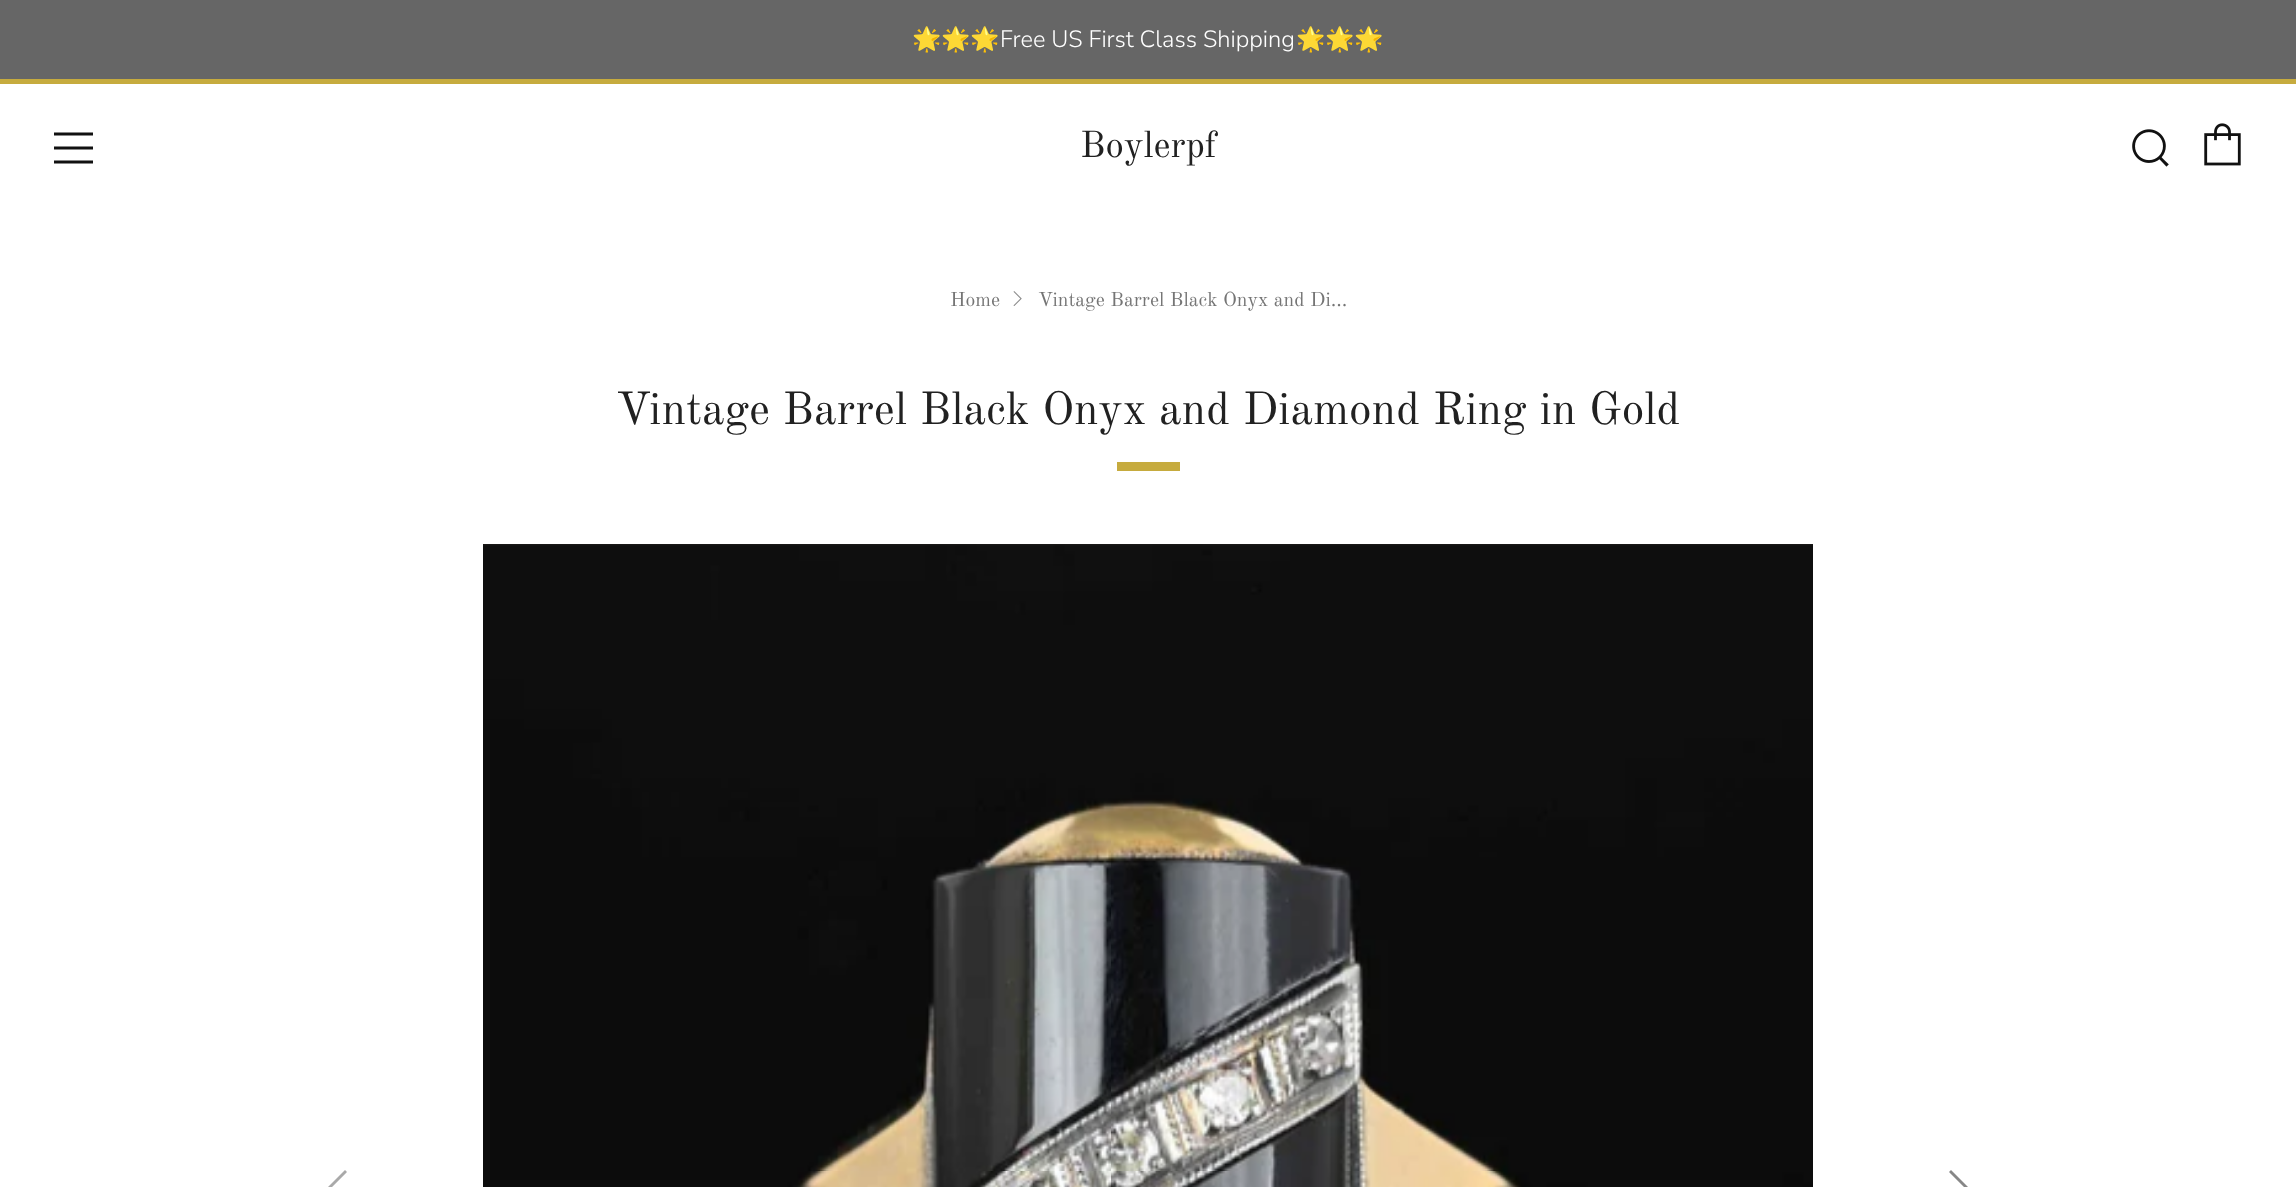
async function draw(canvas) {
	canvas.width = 2296;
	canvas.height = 1187;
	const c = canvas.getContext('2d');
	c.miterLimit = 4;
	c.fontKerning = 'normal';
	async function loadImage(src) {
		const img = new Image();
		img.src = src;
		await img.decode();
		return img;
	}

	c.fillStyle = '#fff';
	c.fillRect(0, 0, 2296, 1187);
	c.fillStyle = '#666';
	c.fillRect(0, 0, 2296, 79);
	c.font = '23.6px Noto Color Emoji';
	c.fillStyle = '#fff';
	c.fillText('🌟🌟🌟', 912, 47);
	c.font = '300 23.6px Nunito Sans';
	c.fillText('Free US First Class Shipping', 1000, 47);
	c.font = '23.6px Noto Color Emoji';
	c.fillText('🌟🌟🌟', 1296, 47);
	c.fillStyle = '#c6ab3e';
	c.fillRect(0, 79, 2296, 5);
	c.fillStyle = '#111';
	c.beginPath();
	c.moveTo(54, 135.5);
	c.lineTo(93, 135.5);
	c.lineTo(93, 132.5);
	c.lineTo(54, 132.5);
	c.closePath();
	c.moveTo(54, 163.5);
	c.lineTo(93, 163.5);
	c.lineTo(93, 160.5);
	c.lineTo(54, 160.5);
	c.closePath();
	c.moveTo(54, 149.5);
	c.lineTo(93, 149.5);
	c.lineTo(93, 146.5);
	c.lineTo(54, 146.5);
	c.closePath();
	c.fill();
	c.font = '37px Old Standard TT';
	c.fillStyle = '#212121';
	c.fillText('Boylerpf', 1080, 157);
	c.drawImage(await loadImage('img1.png'), 2132, 129, 37, 38);
	c.drawImage(await loadImage('img2.png'), 2204, 123, 37, 43);
	c.font = '19.75px Old Standard TT';
	c.fillStyle = '#757575';
	c.fillText('Home', 950, 306);
	c.drawImage(await loadImage('img3.png'), 1013, 291, 9, 15);
	c.fillText('Vintage Barrel Black Onyx and Di...', 1038, 306);
	c.font = '45.5px Old Standard TT';
	c.fillStyle = '#212121';
	c.fillText('Vintage Barrel Black Onyx and Diamond Ring in Gold', 616, 424);
	c.fillStyle = '#c6ab3e';
	c.fillRect(1117, 462, 63, 9);
	c.fillStyle = '#a9a9a9';
	c.beginPath();
	c.moveTo(347, 1172);
	c.lineTo(345, 1170);
	c.lineTo(304, 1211);
	c.lineTo(345, 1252);
	c.lineTo(347, 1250);
	c.lineTo(308, 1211);
	c.closePath();
	c.fill();
	c.fillStyle = '#22201f';
	c.fillRect(483, 544, 1330, 2);
	c.drawImage(await loadImage('img4.png'), 483, 544, 1330, 643);
	c.fillStyle = '#878787';
	c.beginPath();
	c.moveTo(1949, 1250);
	c.lineTo(1951, 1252);
	c.lineTo(1992, 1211);
	c.lineTo(1951, 1170);
	c.lineTo(1949, 1172);
	c.lineTo(1988, 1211);
	c.closePath();
	c.fill();
}

draw(document.querySelector('canvas'));
